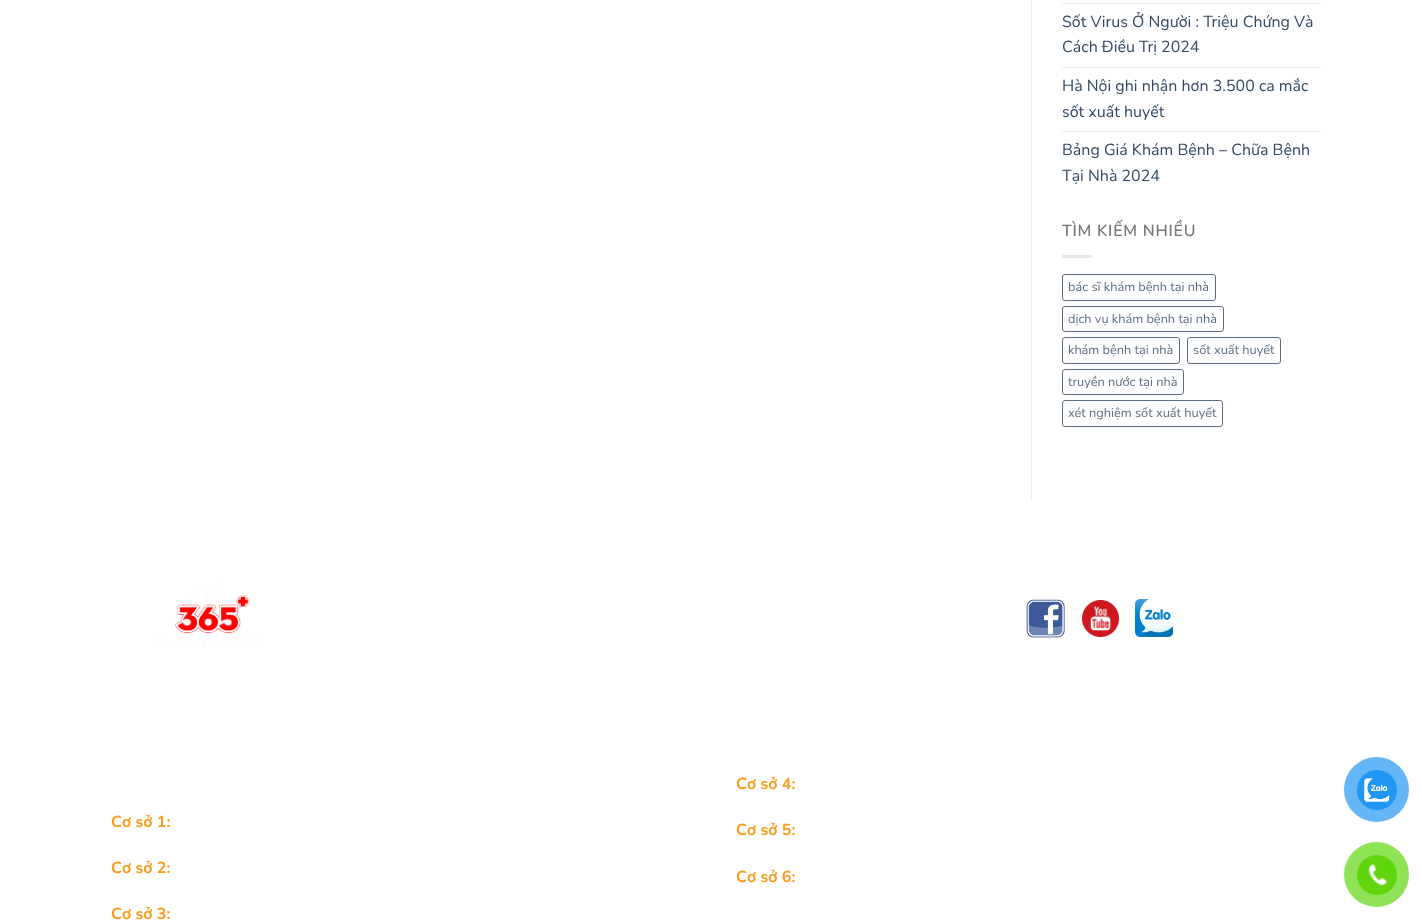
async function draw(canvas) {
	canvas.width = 1422;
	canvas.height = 920;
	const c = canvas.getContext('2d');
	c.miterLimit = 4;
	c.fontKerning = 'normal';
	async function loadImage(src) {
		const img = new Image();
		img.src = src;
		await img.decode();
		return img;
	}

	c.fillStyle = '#fff';
	c.fillRect(0, 0, 1422, 920);
	c.fillStyle = '#ececec';
	c.fillRect(1031, 0, 1, 501);
	c.fillRect(1062, 3, 259, 1);
	c.font = '16px Nunito';
	c.fillStyle = '#334862';
	c.fillText('Sốt Virus Ở Người : Triệu Chứng Và', 1062, 27);
	c.fillText('Cách Điều Trị 2024', 1062, 52);
	c.fillStyle = '#ececec';
	c.fillRect(1062, 67, 259, 1);
	c.fillStyle = '#334862';
	c.fillText('Hà Nội ghi nhận hơn 3.500 ca mắc', 1062, 91);
	c.fillText('sốt xuất huyết', 1062, 117);
	c.fillStyle = '#ececec';
	c.fillRect(1062, 131, 259, 1);
	c.fillStyle = '#334862';
	c.fillText('Bảng Giá Khám Bệnh – Chữa Bệnh', 1062, 155);
	c.fillText('Tại Nhà 2024', 1062, 181);
	c.letterSpacing = '0.75px';
	c.font = '600 16px Nunito';
	c.fillStyle = '#777';
	c.fillText('TÌM KIẾM NHIỀU', 1062, 236);
	c.fillStyle = '#e6e6e6';
	c.fillRect(1062, 255, 30, 3);
	c.beginPath();
	c.roundRect(1062.5, 274.5, 153, 26, 2.5);
	c.strokeStyle = '#5c6d81';
	c.stroke();
	c.letterSpacing = '0px';
	c.font = '12.75px Nunito';
	c.fillStyle = '#5c6d81';
	c.fillText('bác sĩ khám bệnh tại nhà', 1068, 291);
	c.beginPath();
	c.roundRect(1062.5, 306.5, 161, 25, 2.5);
	c.stroke();
	c.fillText('dịch vụ khám bệnh tại nhà', 1068, 323);
	c.beginPath();
	c.roundRect(1062.5, 337.5, 117, 26, 2.5);
	c.stroke();
	c.fillText('khám bệnh tại nhà', 1068, 354);
	c.beginPath();
	c.roundRect(1187.5, 337.5, 93, 26, 2.5);
	c.stroke();
	c.fillText('sốt xuất huyết', 1193, 354);
	c.beginPath();
	c.roundRect(1062.5, 369.5, 121, 25, 2.5);
	c.stroke();
	c.fillText('truyền nước tại nhà', 1068, 386);
	c.beginPath();
	c.roundRect(1062.5, 400.5, 160, 26, 2.5);
	c.stroke();
	c.fillText('xét nghiệm sốt xuất huyết', 1068, 417);
	c.drawImage(await loadImage('img1.png'), 155, 582, 106, 66);
	c.drawImage(await loadImage('img2.png'), 1026, 599, 39, 39);
	c.drawImage(await loadImage('img3.png'), 1082, 600, 37, 37);
	c.drawImage(await loadImage('img4.png'), 1135, 599, 38, 38);
	c.font = 'bold 16px Nunito';
	c.fillStyle = '#f99b1c';
	for (const [text, x, y] of [
		['Cơ sở 1:', 111, 827],
		['Cơ sở 2:', 111, 873],
		['Cơ sở 3:', 111, 919],
		['Cơ sở 4:', 736, 789],
		['Cơ sở 5:', 736, 835],
		['Cơ sở 6:', 736, 882],
	]) {
		c.fillText(text, x, y);
	}
	c.fillStyle = '#64b6f7';
	c.beginPath();
	c.arc(1376.5, 789.5, 32.5, 0, 2 * Math.PI);
	c.fill();
	c.fillStyle = '#2196f3';
	c.beginPath();
	c.arc(1377, 790, 20, 0, 2 * Math.PI);
	c.fill();
	c.drawImage(await loadImage('img5.png'), 1364, 778, 26, 24);
	c.fillStyle = '#90e256';
	c.beginPath();
	c.arc(1376.5, 874.5, 32.5, 0, 2 * Math.PI);
	c.fill();
	c.fillStyle = '#61d60e';
	c.beginPath();
	c.arc(1377, 875, 20, 0, 2 * Math.PI);
	c.fill();
	c.drawImage(await loadImage('img6.png'), 1368, 864, 19, 22);
}

draw(document.querySelector('canvas'));
